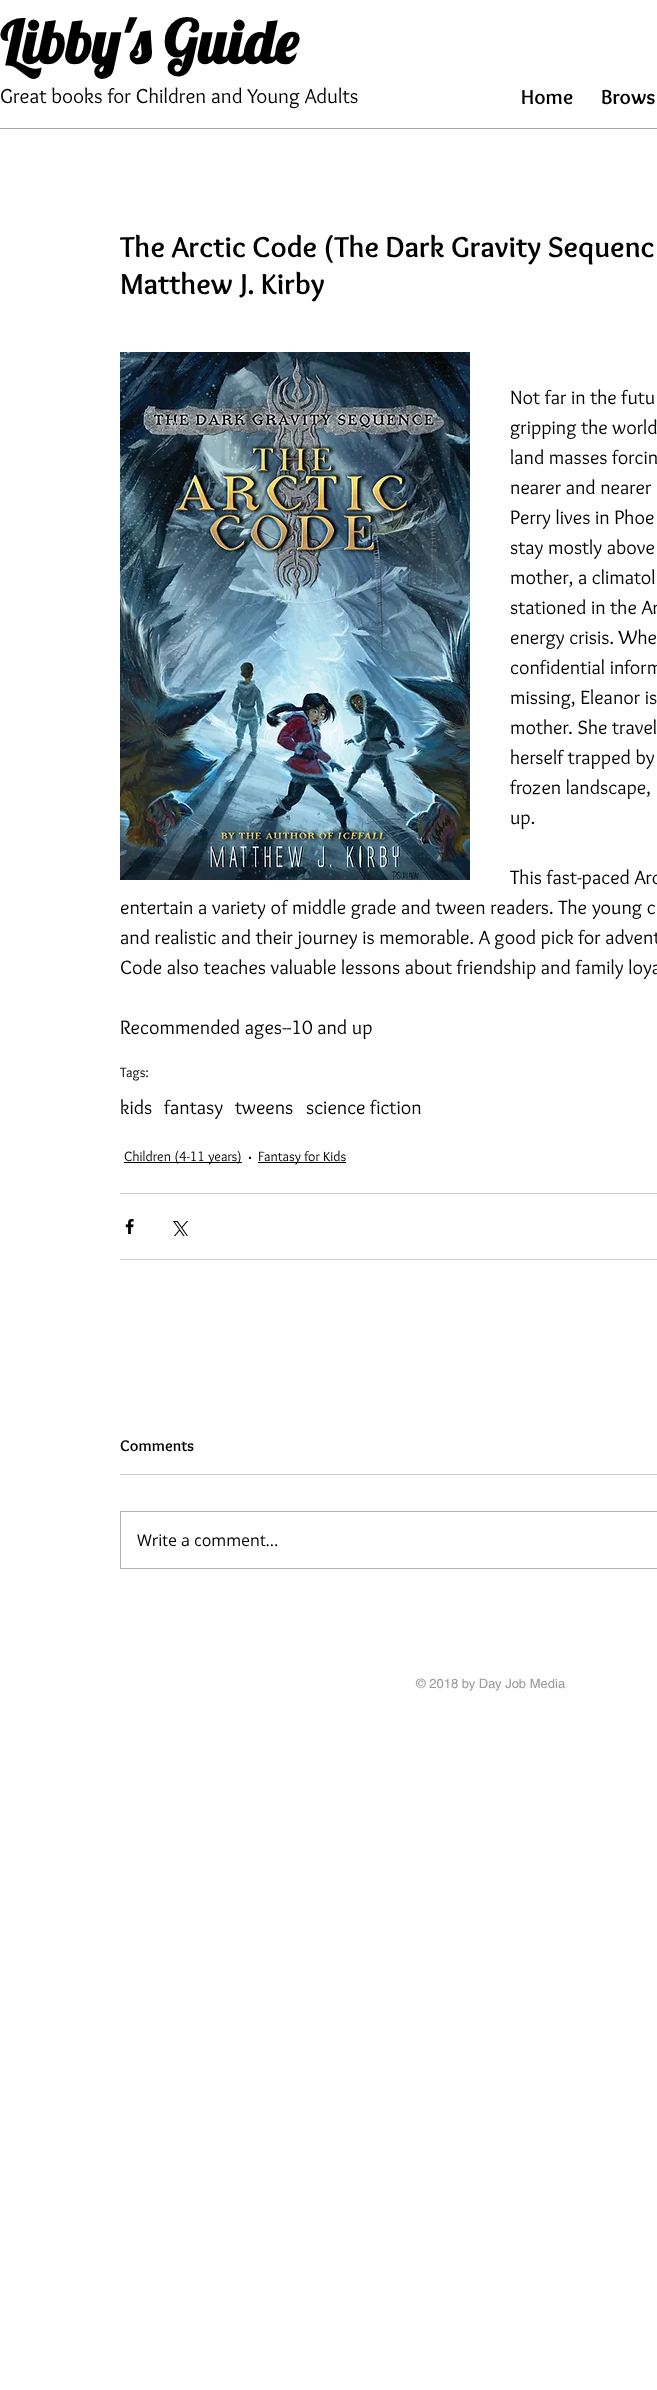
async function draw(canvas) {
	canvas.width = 657;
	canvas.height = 2390;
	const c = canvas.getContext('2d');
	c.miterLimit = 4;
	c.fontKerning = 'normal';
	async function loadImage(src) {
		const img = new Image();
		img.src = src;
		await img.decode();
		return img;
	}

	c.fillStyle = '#fff';
	c.fillRect(0, 0, 657, 2390);
	c.font = 'bold 60px Lobster';
	c.fillStyle = '#000';
	c.fillText('Libby\'s Guide', 0, 64);
	c.font = '21px Overlock';
	c.fillText('Great books for Children and Young Adults', 0, 103);
	c.font = 'bold 21px Overlock';
	c.fillText('Home', 521, 104);
	c.fillText('Brows', 601, 104);
	c.fillStyle = '#a6a6a6';
	c.fillRect(0, 128, 657, 1);
	c.font = 'bold 30px Overlock';
	c.fillStyle = '#000';
	c.fillText('The Arctic Code (The Dark Gravity Sequenc', 120, 257);
	c.fillText('Matthew J. Kirby', 120, 294);
	c.drawImage(await loadImage('img1.png'), 120, 352, 350, 528);
	c.font = '20px Overlock';
	for (const [text, x, y] of [
		['Not far in the futu', 510, 404],
		['gripping the world', 510, 434],
		['land masses forcin', 510, 464],
		['nearer and nearer', 510, 494],
		['Perry lives in Phoe', 510, 524],
		['stay mostly above', 510, 554],
		['mother, a climatol', 510, 584],
		['stationed in the Ar', 510, 614],
		['energy crisis. Whe', 510, 644],
		['confidential inform', 510, 674],
		['missing, Eleanor is', 510, 704],
		['mother. She travel', 510, 734],
		['herself trapped by', 510, 764],
		['frozen landscape,', 510, 794],
		['up.', 510, 824],
		['This fast-paced Arc', 510, 884],
		['entertain a variety of middle grade and tween readers. The young c', 120, 914],
		['and realistic and their journey is memorable. A good pick for advent', 120, 944],
		['Code also teaches valuable lessons about friendship and family loya', 120, 974],
		['Recommended ages--10 and up', 120, 1034],
	]) {
		c.fillText(text, x, y);
	}
	c.font = '14px Overlock';
	c.fillText('Tags:', 120, 1077);
	c.font = '20px Overlock';
	for (const [text, x, y] of [
		['kids', 120, 1114],
		['fantasy', 164, 1114],
		['tweens', 235, 1114],
		['science fiction', 306, 1114],
	]) {
		c.fillText(text, x, y);
	}
	c.fillRect(124, 1162, 118, 1);
	c.font = '14px Overlock';
	c.fillText('Children (4-11 years)', 124, 1161);
	c.font = '20px Overlock';
	c.fillText('·', 248, 1163);
	c.fillRect(258, 1162, 88, 1);
	c.font = '14px Overlock';
	c.fillText('Fantasy for Kids', 258, 1161);
	c.fillStyle = '#ccc';
	c.fillRect(120, 1193, 537, 1);
	c.drawImage(await loadImage('img2.png'), 125, 1219, 9, 15);
	c.drawImage(await loadImage('img3.png'), 173, 1221, 15, 15);
	c.fillRect(120, 1259, 537, 1);
	c.font = 'bold 16px Overlock';
	c.fillStyle = '#000';
	c.fillText('Comments', 120, 1451);
	c.fillStyle = '#ccc';
	c.fillRect(120, 1474, 537, 1);
	c.strokeStyle = '#b3b3b3';
	c.strokeRect(120.5, 1511.5, 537, 57);
	c.font = '16px Open Sans';
	c.fillStyle = '#000';
	c.fillText('Write a comment...', 137, 1546);
	c.font = '13px helvetica';
	c.fillStyle = '#9b9b9b';
	c.fillText('© 2018 by Day Job Media', 416, 1688);
}

draw(document.querySelector('canvas'));
